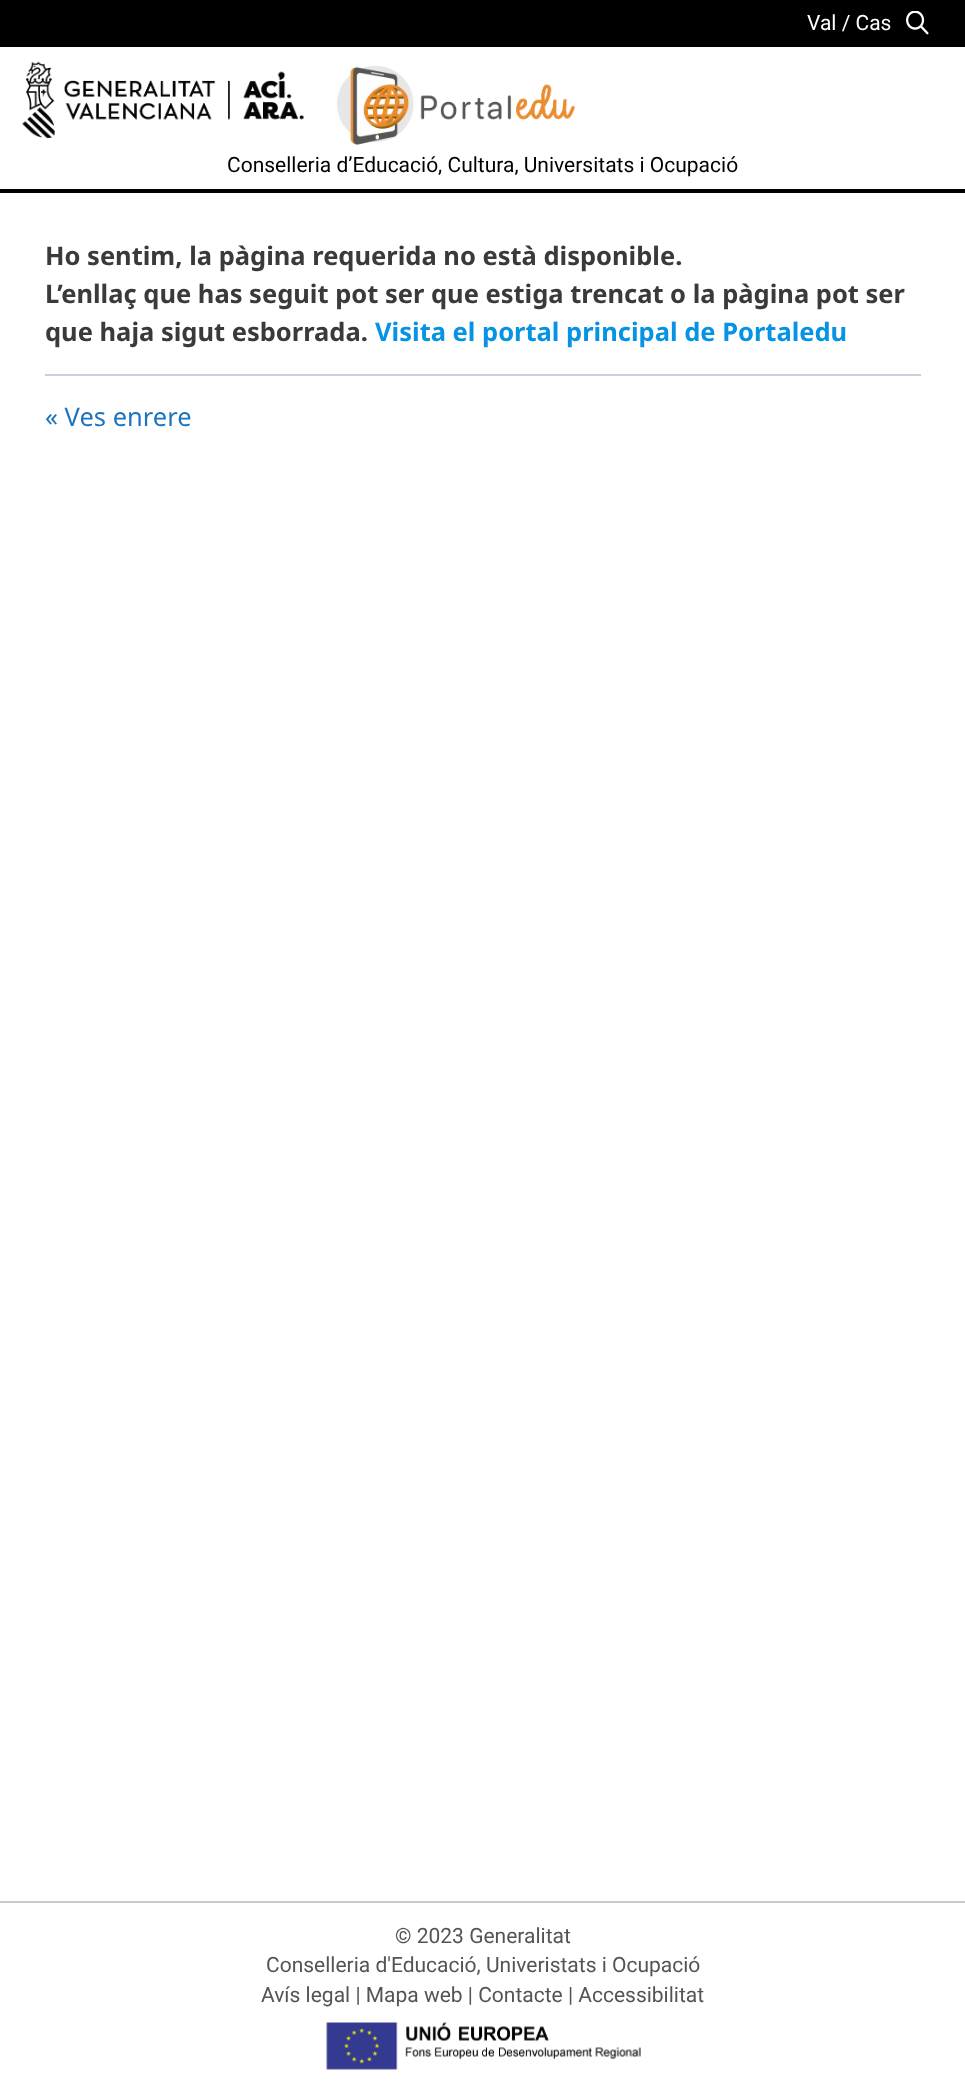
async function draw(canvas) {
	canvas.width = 965;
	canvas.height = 2085;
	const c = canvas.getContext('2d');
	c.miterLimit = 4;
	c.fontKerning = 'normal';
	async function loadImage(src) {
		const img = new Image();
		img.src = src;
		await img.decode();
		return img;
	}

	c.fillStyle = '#fff';
	c.fillRect(0, 0, 965, 2085);
	c.fillStyle = '#000';
	c.fillRect(0, 189, 965, 4);
	c.fillRect(0, 0, 965, 47);
	c.font = '21px Roboto';
	c.fillStyle = '#fff';
	c.fillText('Val / Cas', 807, 30);
	c.drawImage(await loadImage('img1.png'), 906, 11, 23, 24);
	c.drawImage(await loadImage('img2.png'), 22, 61, 282, 77);
	c.drawImage(await loadImage('img3.png'), 337, 65, 238, 80);
	c.fillStyle = '#000';
	c.fillText('Conselleria d’Educació, Cultura, Universitats i Ocupació', 227, 172);
	c.font = 'bold 25.5px Noto Sans';
	c.fillStyle = '#3a3a3a';
	for (const [text, x, y] of [
		['Ho sentim, la pàgina requerida no està disponible.', 45, 265],
		['L’enllaç que has seguit pot ser que estiga trencat o la pàgina pot ser', 45, 303],
		['que haja sigut esborrada.', 45, 341],
	]) {
		c.fillText(text, x, y);
	}
	c.fillStyle = '#0693e3';
	c.fillText('Visita el portal principal de Portaledu', 375, 341);
	c.fillStyle = '#cdced9';
	c.fillRect(45, 374, 876, 2);
	c.font = '25.5px Noto Sans';
	c.fillStyle = '#1e73be';
	c.fillText('« Ves enrere', 45, 426);
	c.fillStyle = '#c9c9c4';
	c.fillRect(0, 1901, 965, 2);
	c.font = '21px Roboto';
	c.fillStyle = '#565353';
	for (const [text, x, y] of [
		['© 2023 Generalitat', 395, 1943],
		['Conselleria d\'Educació, Univeristats i Ocupació', 266, 1972],
		['Avís legal | Mapa web | Contacte | Accessibilitat', 261, 2002],
	]) {
		c.fillText(text, x, y);
	}
	c.drawImage(await loadImage('img4.png'), 326, 2022, 315, 48);
}

draw(document.querySelector('canvas'));
